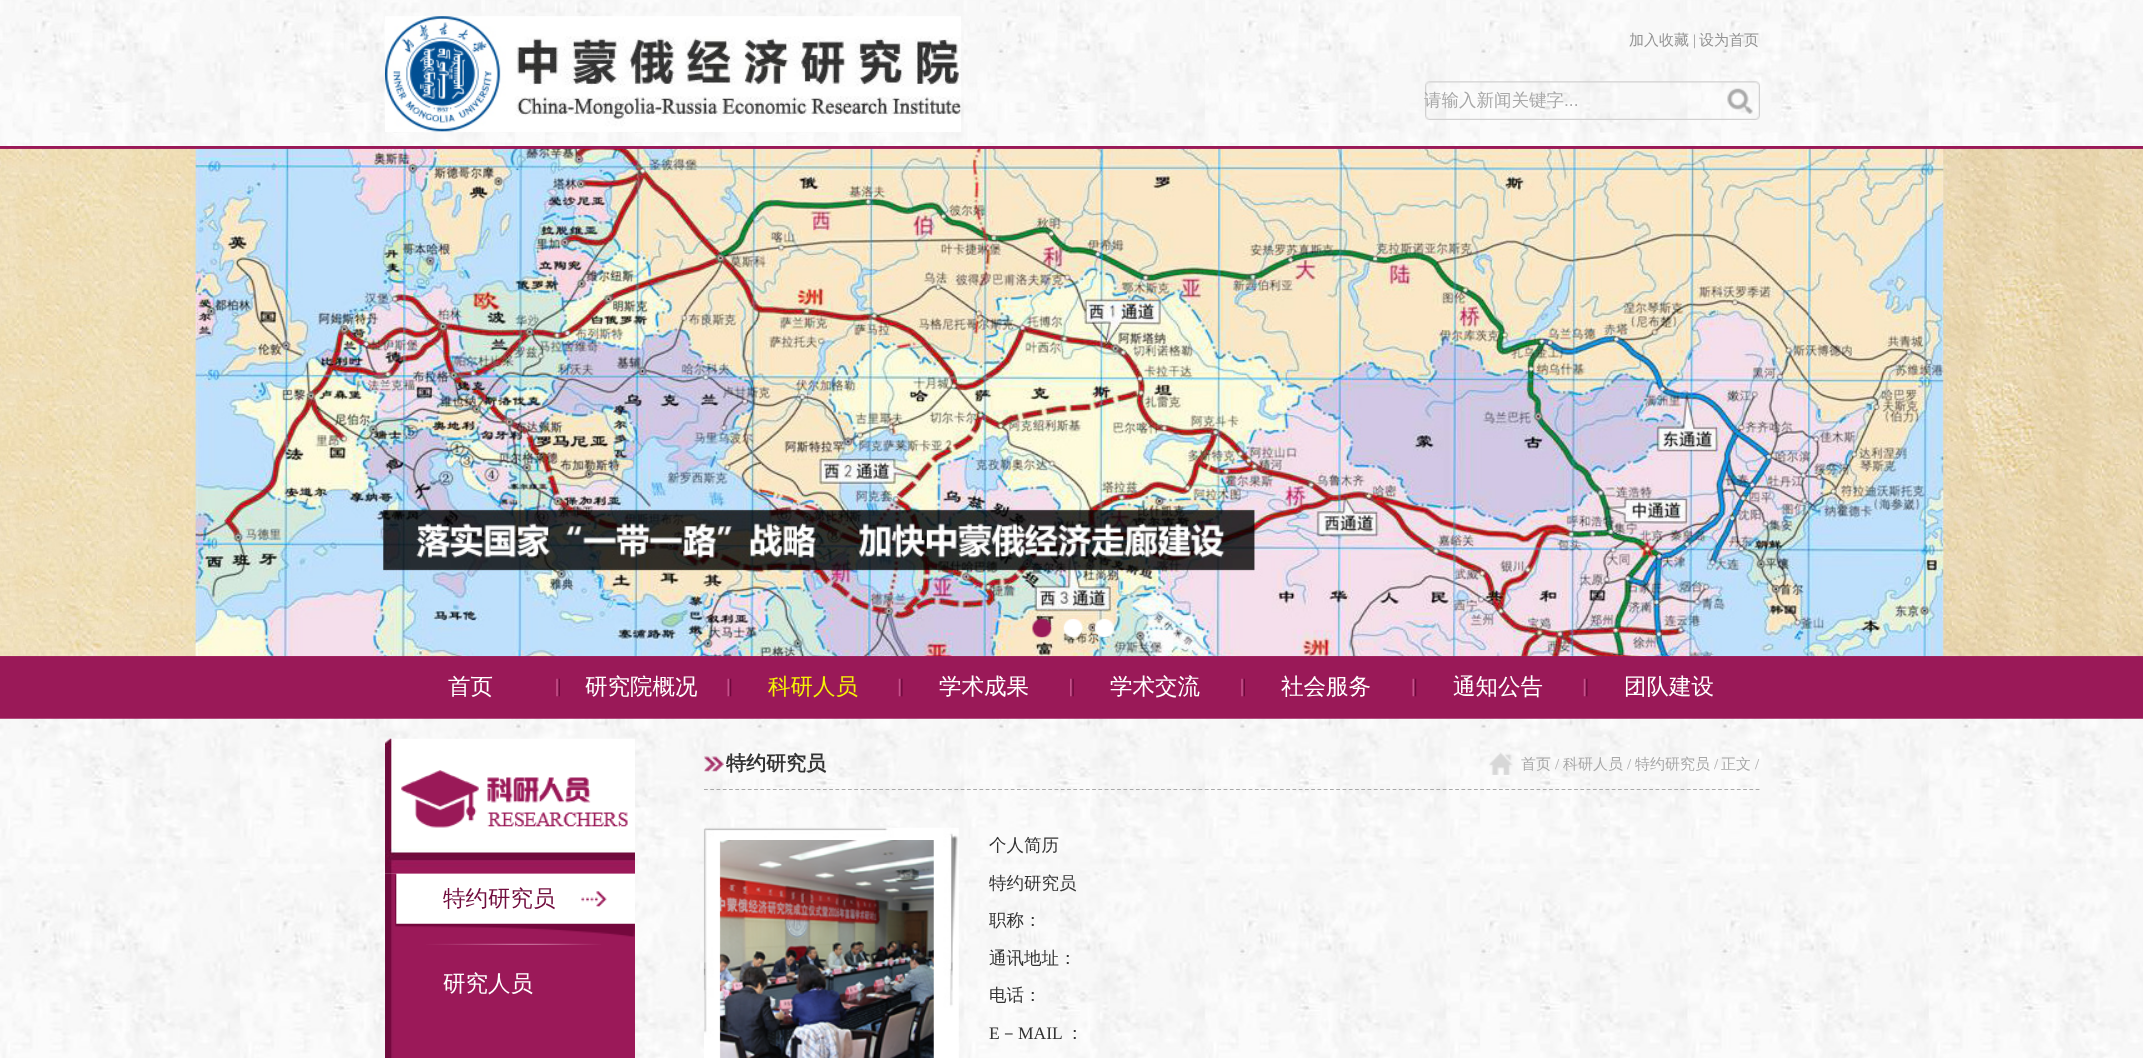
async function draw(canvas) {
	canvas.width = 2143;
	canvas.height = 1058;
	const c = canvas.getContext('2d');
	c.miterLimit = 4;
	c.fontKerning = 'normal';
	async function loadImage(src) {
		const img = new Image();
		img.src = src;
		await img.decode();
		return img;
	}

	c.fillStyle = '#fff';
	c.fillRect(0, 0, 2143, 1058);
	c.drawImage(await loadImage('img1.png'), 0, 0, 2143, 146);
	c.fillStyle = '#9a1958';
	c.fillRect(0, 146, 2143, 3);
	c.drawImage(await loadImage('img2.png'), 385, 16, 576, 116);
	c.font = '500 15px WenQuanYi Zen Hei';
	c.fillStyle = '#939393';
	c.fillText('加入收藏', 1629, 45);
	c.font = '15px Liberation Serif';
	c.fillText('|', 1693, 45);
	c.font = '500 15px WenQuanYi Zen Hei';
	c.fillText('设为首页', 1699, 45);
	c.drawImage(await loadImage('img3.png'), 1425, 81, 335, 39);
	c.font = '500 17.5px WenQuanYi Zen Hei';
	c.fillStyle = '#a8a8a8';
	c.fillText('请输入新闻关键字', 1424, 106);
	c.font = '17.5px Liberation Sans';
	c.fillText('...', 1564, 106);
	c.drawImage(await loadImage('img4.png'), 1727, 88, 26, 26);
	c.fillStyle = '#9a1958';
	c.fillRect(0, 656, 2143, 63);
	c.drawImage(await loadImage('img5.png'), 0, 148, 2143, 509);
	c.drawImage(await loadImage('img6.png'), 1032, 618, 20, 20);
	c.drawImage(await loadImage('img7.png'), 1063, 619, 20, 19);
	c.drawImage(await loadImage('img8.png'), 1095, 619, 19, 19);
	c.font = '500 22.5px WenQuanYi Zen Hei';
	c.fillStyle = '#fff';
	c.fillText('首页', 448, 694);
	c.drawImage(await loadImage('img9.png'), 556, 678, 4, 19);
	c.fillText('研究院概况', 585, 694);
	c.drawImage(await loadImage('img10.png'), 727, 678, 5, 19);
	c.fillStyle = '#f5f207';
	c.fillText('科研人员', 768, 694);
	c.drawImage(await loadImage('img11.png'), 898, 678, 5, 19);
	c.fillStyle = '#fff';
	c.fillText('学术成果', 939, 694);
	c.drawImage(await loadImage('img12.png'), 1070, 678, 4, 19);
	c.fillText('学术交流', 1110, 694);
	c.drawImage(await loadImage('img9.png'), 1241, 678, 4, 19);
	c.fillText('社会服务', 1281, 694);
	c.drawImage(await loadImage('img10.png'), 1412, 678, 5, 19);
	c.fillText('通知公告', 1453, 694);
	c.drawImage(await loadImage('img11.png'), 1583, 678, 5, 19);
	c.fillText('团队建设', 1624, 694);
	c.drawImage(await loadImage('img13.png'), 0, 718, 2143, 340);
	c.drawImage(await loadImage('img14.png'), 385, 738, 250, 136);
	c.drawImage(await loadImage('img15.png'), 401, 770, 227, 58);
	c.drawImage(await loadImage('img16.png'), 385, 873, 250, 185);
	c.drawImage(await loadImage('img17.png'), 426, 943, 175, 2);
	c.drawImage(await loadImage('img18.png'), 395, 873, 240, 64);
	c.fillStyle = '#700c3d';
	c.fillText('特约研究员', 443, 906);
	c.fillStyle = '#fff';
	c.fillText('研究人员', 443, 991);
	c.beginPath();
	c.moveTo(704, 789.5);
	c.lineTo(1760, 789.5);
	c.strokeStyle = '#a8a8a8';
	c.lineWidth = 1.2;
	c.setLineDash([3.75, 2.51]);
	c.stroke();
	c.drawImage(await loadImage('img19.png'), 704, 756, 20, 16);
	c.font = 'bold 20px WenQuanYi Zen Hei';
	c.fillStyle = '#333';
	c.fillText('特约研究员', 726, 770);
	c.drawImage(await loadImage('img20.png'), 1489, 752, 24, 23);
	c.font = '500 15px WenQuanYi Zen Hei';
	c.fillStyle = '#a8a8a8';
	c.fillText('首页', 1521, 769);
	c.font = '15px Liberation Serif';
	c.fillText('/', 1555, 769);
	c.font = '500 15px WenQuanYi Zen Hei';
	c.fillText('科研人员', 1563, 769);
	c.font = '15px Liberation Serif';
	c.fillText('/', 1627, 769);
	c.font = '500 15px WenQuanYi Zen Hei';
	c.fillText('特约研究员', 1635, 769);
	c.font = '15px Liberation Serif';
	c.fillText('/', 1714, 769);
	c.font = '500 15px WenQuanYi Zen Hei';
	c.fillText('正文', 1721, 769);
	c.font = '15px Liberation Serif';
	c.fillText('/', 1755, 769);
	c.drawImage(await loadImage('img21.png'), 703, 827, 256, 231);
	c.drawImage(await loadImage('img22.png'), 719, 840, 215, 218);
	c.font = '500 17.5px WenQuanYi Zen Hei';
	c.fillStyle = '#333';
	for (const [text, x, y] of [
		['个人简历', 989, 851],
		['特约研究员', 989, 889],
		['职称：', 989, 926],
		['通讯地址：', 989, 964],
		['电话：', 989, 1001],
	]) {
		c.fillText(text, x, y);
	}
	c.font = '17.5px Liberation Serif';
	c.fillText('E', 989, 1039);
	c.font = '500 17.5px WenQuanYi Zen Hei';
	c.fillText('－', 1000, 1039);
	c.font = '17.5px Liberation Serif';
	c.fillText('MAIL', 1018, 1039);
	c.font = '500 17.5px WenQuanYi Zen Hei';
	c.fillText('：', 1066, 1039);
}

draw(document.querySelector('canvas'));
